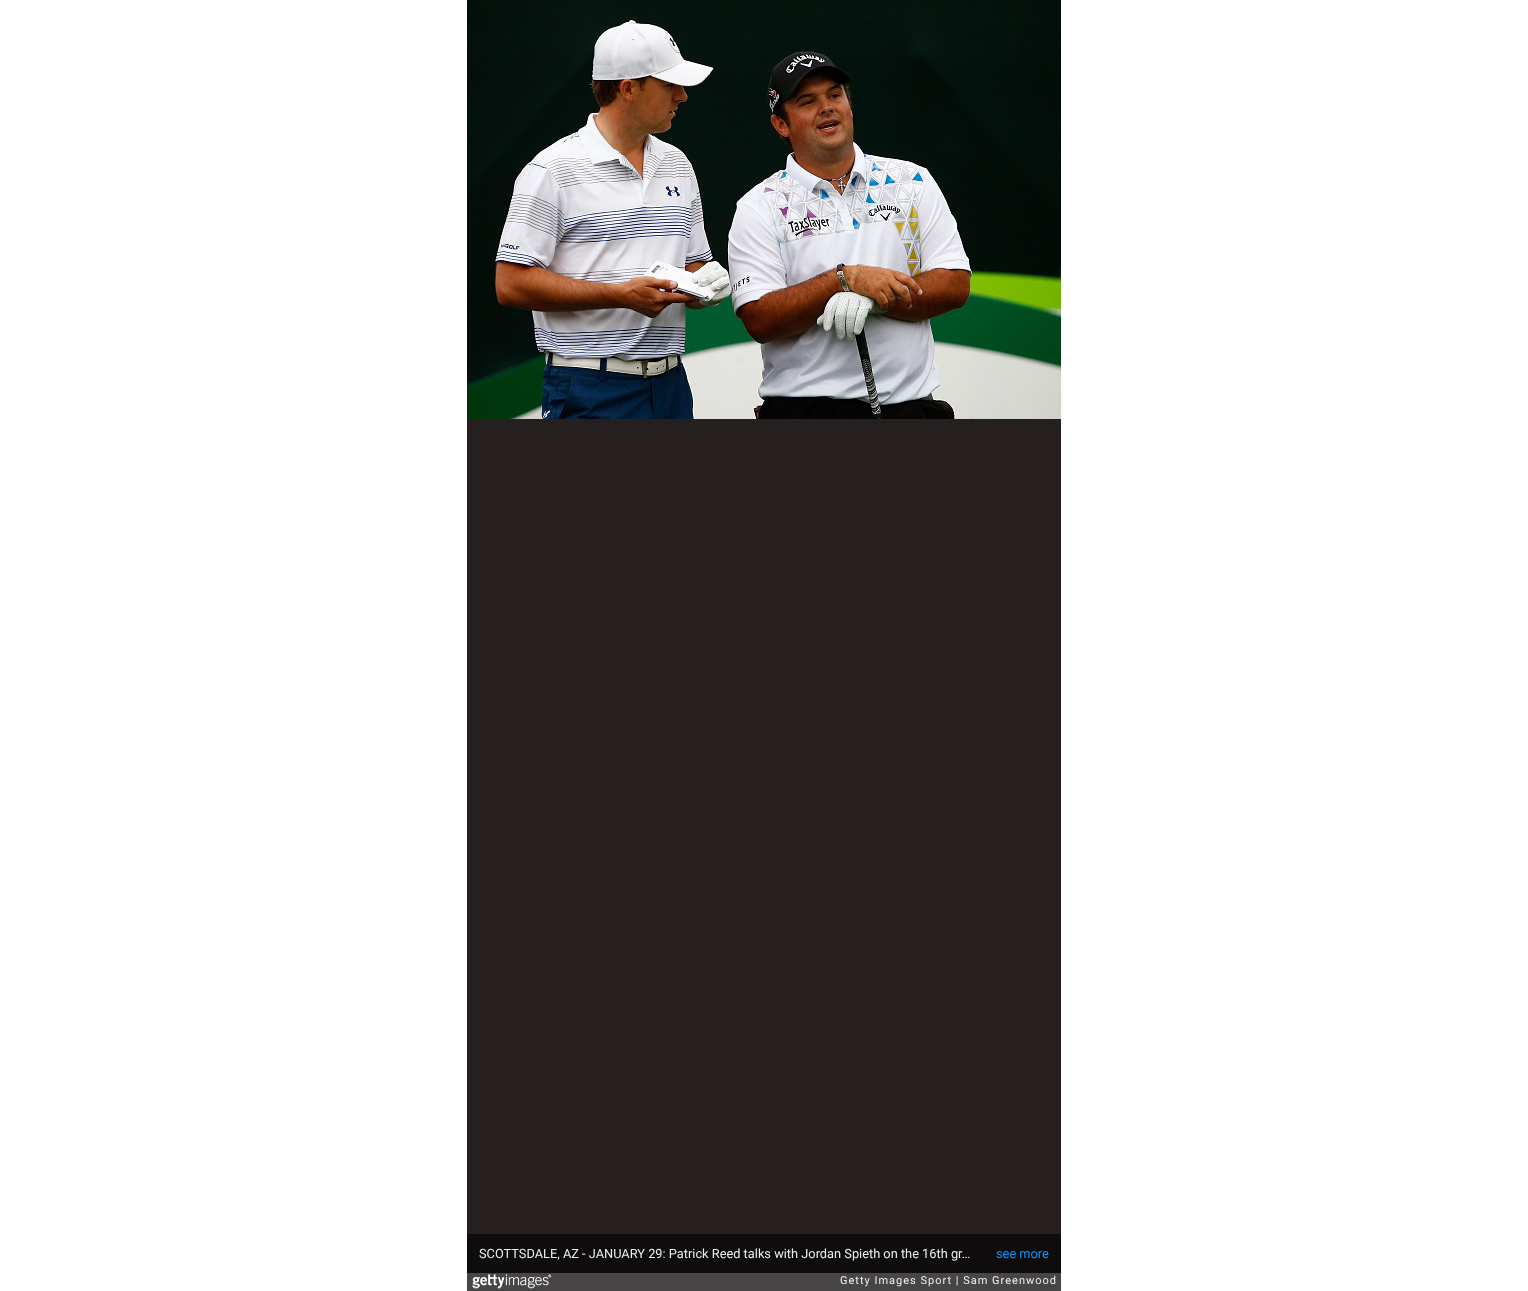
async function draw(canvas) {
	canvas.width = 1528;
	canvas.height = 1291;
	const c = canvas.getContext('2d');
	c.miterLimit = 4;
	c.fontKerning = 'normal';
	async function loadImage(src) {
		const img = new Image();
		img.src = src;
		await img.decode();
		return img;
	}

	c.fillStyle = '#fff';
	c.fillRect(0, 0, 1528, 1291);
	c.fillStyle = '#251f20';
	c.fillRect(467, 419, 594, 815);
	c.drawImage(await loadImage('img1.png'), 467, 0, 594, 419);
	c.fillStyle = '#0f0c0d';
	c.fillRect(467, 1234, 594, 39);
	c.font = '12.8px Roboto';
	c.fillStyle = '#eee';
	c.fillText('SCOTTSDALE, AZ - JANUARY 29: Patrick Reed talks with Jordan Spieth on the 16th gr…', 479, 1258);
	c.fillStyle = '#09f';
	c.fillText('see more', 996, 1258);
	c.fillStyle = '#474545';
	c.fillRect(467, 1273, 594, 18);
	c.drawImage(await loadImage('img2.png'), 472, 1274, 80, 15);
	c.letterSpacing = '1px';
	c.font = '11px Roboto';
	c.fillStyle = '#eee';
	c.fillText('Getty Images Sport | Sam Greenwood', 840, 1284);
}

draw(document.querySelector('canvas'));
